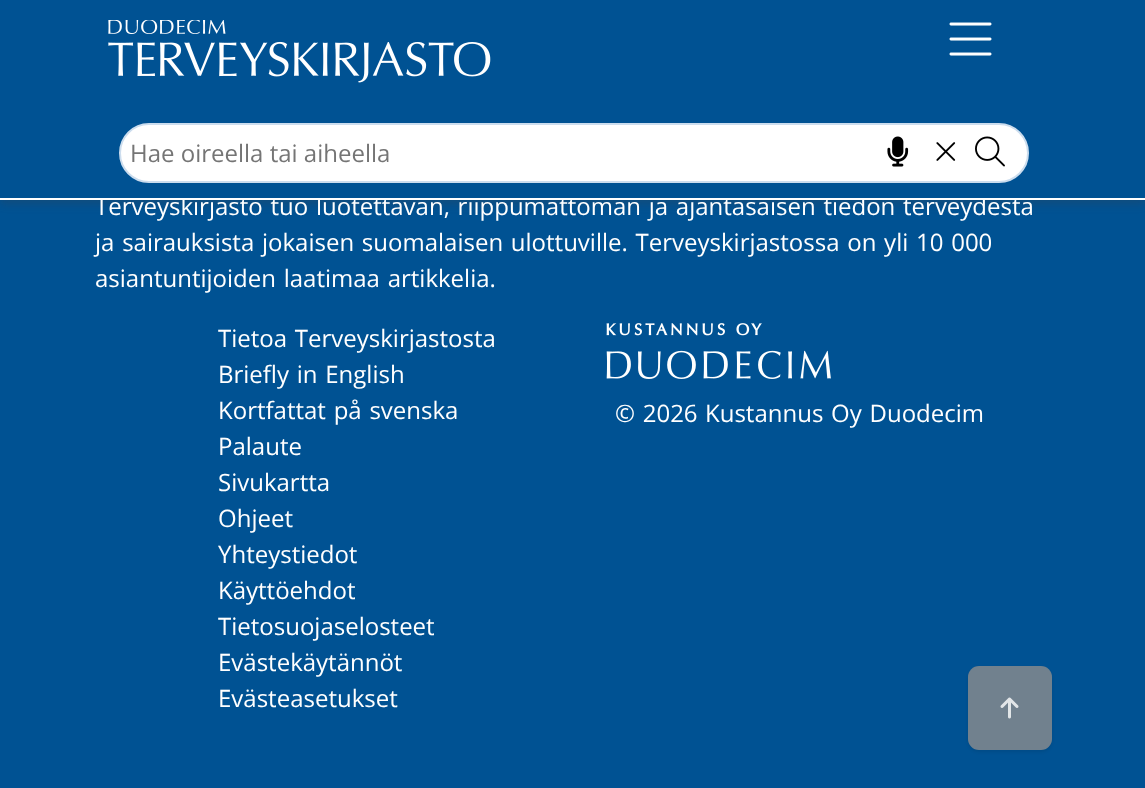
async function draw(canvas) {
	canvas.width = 1145;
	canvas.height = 788;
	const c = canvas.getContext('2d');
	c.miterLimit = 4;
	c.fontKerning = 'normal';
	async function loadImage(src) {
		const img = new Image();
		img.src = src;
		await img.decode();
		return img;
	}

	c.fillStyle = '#005293';
	c.fillRect(0, 0, 1145, 788);
	c.fillStyle = '#393f484d';
	c.filter = 'blur(4px)';
	c.beginPath();
	c.rect(0, 5, 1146, 199);
	c.fill();
	c.filter = 'none';
	c.wordSpacing = '1.5px';
	c.font = '24px Open Sans';
	c.fillStyle = '#fff';
	c.fillText('Terveyskirjasto tuo luotettavan, riippumattoman ja ajantasaisen tiedon terveydestä', 95, 215);
	c.fillStyle = '#005293';
	c.fillRect(0, 0, 1145, 198);
	c.fillStyle = '#fff';
	c.fillRect(0, 198, 1145, 2);
	c.drawImage(await loadImage('img1.png'), 108, 20, 383, 63);
	c.drawImage(await loadImage('img2.png'), 949, 22, 43, 34);
	c.beginPath();
	c.roundRect(120, 124, 908, 58, 29);
	c.fill();
	c.strokeStyle = '#cde';
	c.lineWidth = 2;
	c.stroke();
	c.wordSpacing = '0px';
	c.fillStyle = '#757575';
	c.fillText('Hae oireella tai aiheella', 130, 162);
	c.drawImage(await loadImage('img3.png'), 887, 136, 22, 31);
	c.drawImage(await loadImage('img4.png'), 936, 142, 20, 19);
	c.drawImage(await loadImage('img5.png'), 975, 136, 30, 31);
	c.wordSpacing = '1.5px';
	c.fillStyle = '#fff';
	for (const [text, x, y] of [
		['ja sairauksista jokaisen suomalaisen ulottuville. Terveyskirjastossa on yli 10 000', 95, 251],
		['asiantuntijoiden laatimaa artikkelia.', 95, 287],
		['Tietoa Terveyskirjastosta', 218, 347],
		['Briefly in English', 218, 383],
		['Kortfattat på svenska', 218, 419],
	]) {
		c.fillText(text, x, y);
	}
	c.wordSpacing = '0px';
	for (const [text, x, y] of [
		['Palaute', 218, 455],
		['Sivukartta', 218, 491],
		['Ohjeet', 218, 527],
		['Yhteystiedot', 218, 563],
		['Käyttöehdot', 218, 599],
		['Tietosuojaselosteet', 218, 635],
		['Evästekäytännöt', 218, 671],
		['Evästeasetukset', 218, 707],
	]) {
		c.fillText(text, x, y);
	}
	c.drawImage(await loadImage('img6.png'), 606, 323, 225, 56);
	c.wordSpacing = '1.5px';
	c.fillText('© 2026', 615, 422);
	c.fillText('Kustannus Oy Duodecim', 705, 422);
	c.fillStyle = '#00101d1a';
	c.filter = 'blur(1.5px)';
	c.beginPath();
	c.roundRect(968, 668, 84, 84, 11);
	c.fill();
	c.filter = 'none';
	c.fillStyle = '#71818e';
	c.beginPath();
	c.roundRect(968, 666, 84, 84, 11);
	c.fill();
	c.drawImage(await loadImage('img7.png'), 1000, 697, 19, 22);
}

draw(document.querySelector('canvas'));
